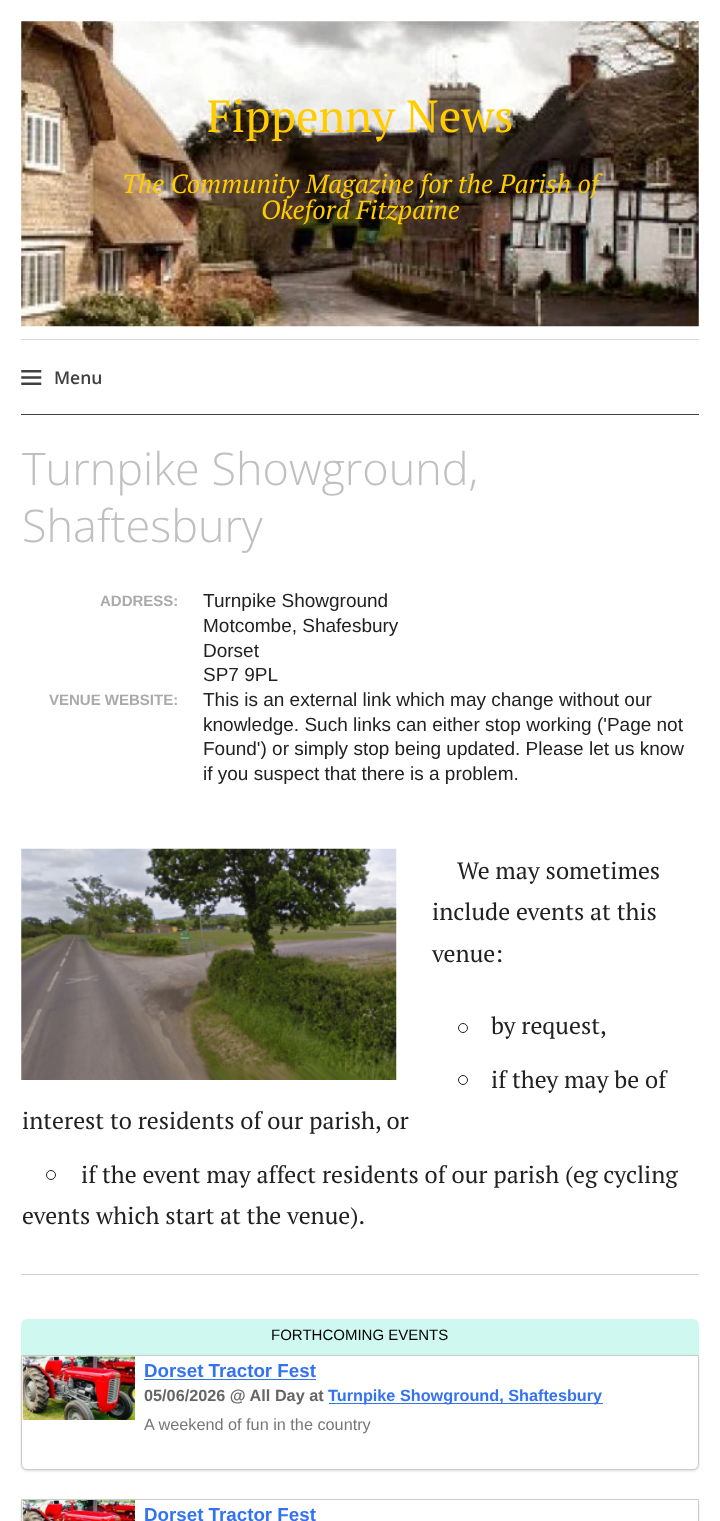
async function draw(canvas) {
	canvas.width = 720;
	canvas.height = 1521;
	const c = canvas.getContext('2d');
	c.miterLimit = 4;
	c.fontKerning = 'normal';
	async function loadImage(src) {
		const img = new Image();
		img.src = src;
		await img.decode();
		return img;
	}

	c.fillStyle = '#fff';
	c.fillRect(0, 0, 720, 1521);
	c.drawImage(await loadImage('img1.png'), 21, 21, 678, 306);
	c.font = '45px PT Serif';
	c.fillStyle = '#fc0';
	c.fillText('Fippenny News', 207, 132);
	c.font = 'italic 26.25px PT Serif';
	c.fillText('The Community Magazine for the Parish of', 122, 193);
	c.fillText('Okeford Fitzpaine', 261, 219);
	c.fillStyle = '#d9d9d9';
	c.fillRect(21, 339, 678, 1);
	c.fillStyle = '#404040';
	c.fillRect(21, 414, 678, 1);
	c.drawImage(await loadImage('img2.png'), 21, 370, 21, 15);
	c.font = '600 17.5px Open Sans';
	c.fillText('Menu', 54, 384);
	c.font = '300 45px Open Sans';
	c.fillStyle = '#c0c0c0';
	c.fillText('Turnpike Showground,', 22, 485);
	c.fillText('Shaftesbury', 22, 542);
	c.font = 'bold 15px Liberation Sans';
	c.fillStyle = '#aaa';
	c.fillText('ADDRESS:', 100, 606);
	c.font = '19px Liberation Sans';
	c.fillStyle = '#212121';
	for (const [text, x, y] of [
		['Turnpike Showground', 203, 607],
		['Motcombe, Shafesbury', 203, 632],
		['Dorset', 203, 657],
		['SP7 9PL', 203, 681],
	]) {
		c.fillText(text, x, y);
	}
	c.font = 'bold 15px Liberation Sans';
	c.fillStyle = '#aaa';
	c.fillText('VENUE WEBSITE:', 49, 705);
	c.font = '19px Liberation Sans';
	c.fillStyle = '#212121';
	for (const [text, x, y] of [
		['This is an external link which may change without our', 203, 706],
		['knowledge. Such links can either stop working (\'Page not', 203, 731],
		['Found\') or simply stop being updated. Please let us know', 203, 755],
		['if you suspect that there is a problem.', 203, 780],
	]) {
		c.fillText(text, x, y);
	}
	c.drawImage(await loadImage('img3.png'), 21, 848, 376, 232);
	c.font = '23.75px PT Serif';
	for (const [text, x, y] of [
		['We may sometimes', 457, 879],
		['include events at this', 432, 920],
		['venue:', 432, 962],
	]) {
		c.fillText(text, x, y);
	}
	c.beginPath();
	c.arc(463, 1028, 4.5, 0, 2 * Math.PI);
	c.strokeStyle = '#212121';
	c.stroke();
	c.fillText('by request,', 491, 1034);
	c.beginPath();
	c.arc(463, 1080, 4.5, 0, 2 * Math.PI);
	c.stroke();
	c.fillText('if they may be of', 491, 1088);
	c.fillText('interest to residents of our parish, or', 22, 1129);
	c.beginPath();
	c.arc(51, 1175, 4.5, 0, 2 * Math.PI);
	c.stroke();
	c.fillText('if the event may affect residents of our parish (eg cycling', 81, 1183);
	c.fillText('events which start at the venue).', 22, 1224);
	c.fillStyle = '#d1d1d1';
	c.fillRect(21, 1274, 678, 1);
	c.fillStyle = '#cff9f0';
	c.beginPath();
	c.roundRect(21, 1319, 678, 36, [6, 6, 0, 0]);
	c.fill();
	c.font = '15px Liberation Sans';
	c.fillStyle = '#000';
	c.fillText('FORTHCOMING EVENTS', 271, 1340);
	c.fillStyle = '#00000026';
	c.filter = 'blur(1px)';
	c.beginPath();
	c.roundRect(21, 1356, 678, 115, 6);
	c.fill();
	c.filter = 'none';
	c.fillStyle = '#fff';
	c.beginPath();
	c.roundRect(21.5, 1355.5, 677, 114, [0, 0, 5.5, 5.5]);
	c.fill();
	c.strokeStyle = '#ccc';
	c.stroke();
	c.drawImage(await loadImage('img4.png'), 22, 1356, 113, 64);
	c.font = 'bold 18.75px Liberation Sans';
	c.fillStyle = '#3372f0';
	c.fillText('Dorset Tractor Fest', 144, 1377);
	c.fillRect(144, 1379, 172, 1);
	c.font = 'bold 16.25px Liberation Sans';
	c.fillStyle = '#666';
	c.fillText('05/06/2026 @ All Day at', 144, 1401);
	c.fillStyle = '#3372f0';
	c.fillRect(329, 1403, 274, 1);
	c.fillText('Turnpike Showground, Shaftesbury', 328, 1401);
	c.font = '16.25px Liberation Sans';
	c.fillStyle = '#777';
	c.fillText('A weekend of fun in the country', 144, 1430);
	c.fillStyle = '#00000026';
	c.filter = 'blur(1px)';
	c.beginPath();
	c.roundRect(21, 1500, 678, 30, 6);
	c.fill();
	c.filter = 'none';
	c.fillStyle = '#fff';
	c.beginPath();
	c.rect(21.5, 1499.5, 677, 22);
	c.fill();
	c.stroke();
	c.drawImage(await loadImage('img5.png'), 22, 1500, 113, 21);
	c.font = 'bold 18.75px Liberation Sans';
	c.fillStyle = '#3372f0';
	c.fillText('Dorset Tractor Fest', 144, 1521);
}

draw(document.querySelector('canvas'));
